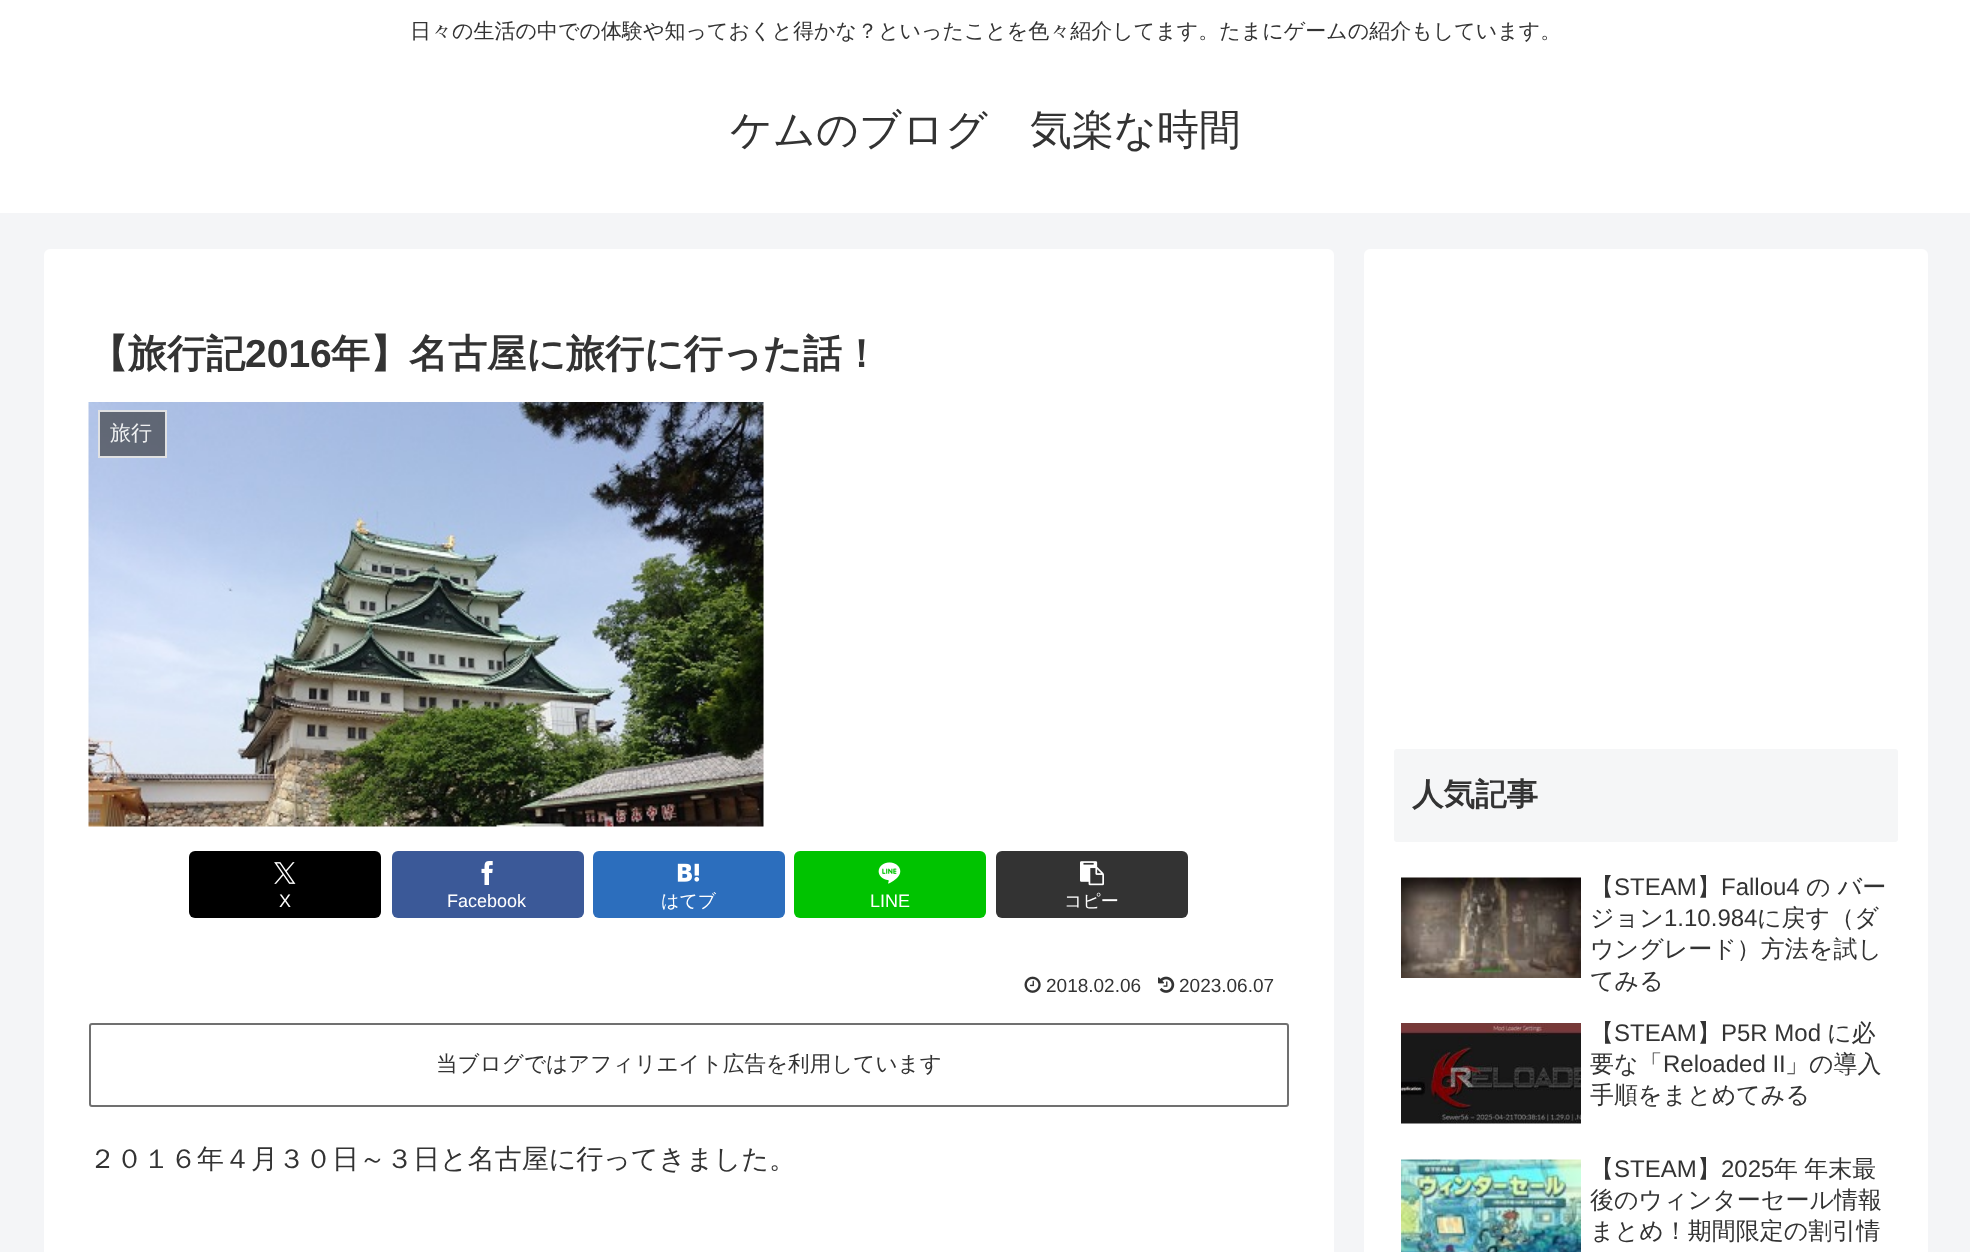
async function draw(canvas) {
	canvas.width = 1970;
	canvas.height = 1252;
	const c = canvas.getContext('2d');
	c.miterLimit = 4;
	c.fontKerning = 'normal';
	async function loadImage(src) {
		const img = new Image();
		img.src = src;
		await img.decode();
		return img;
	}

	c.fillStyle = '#f4f5f7';
	c.fillRect(0, 0, 1970, 1252);
	c.fillStyle = '#fff';
	c.fillRect(0, 0, 1970, 213);
	c.font = '500 21px WenQuanYi Zen Hei';
	c.fillStyle = '#333';
	c.fillText('日々の生活の中での体験や知っておくと得かな？といったことを色々紹介してます。たまにゲームの紹介もしています。', 410, 38);
	c.font = '500 42px WenQuanYi Zen Hei';
	c.fillText('ケムのブログ　気楽な時間', 730, 144);
	c.fillStyle = '#fff';
	c.beginPath();
	c.roundRect(44, 249, 1290, 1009, 6);
	c.fill();
	c.font = 'bold 39px WenQuanYi Zen Hei';
	c.fillStyle = '#333';
	c.fillText('【旅行記', 89, 367);
	c.font = 'bold 39px Liberation Sans';
	c.fillText('2016', 245, 367);
	c.font = 'bold 39px WenQuanYi Zen Hei';
	c.fillText('年】名古屋に旅行に行った話！', 331, 367);
	c.drawImage(await loadImage('img1.png'), 88, 402, 676, 425);
	c.fillStyle = '#333333a1';
	c.fillRect(98, 410, 69, 48);
	c.strokeStyle = '#eeeeeee6';
	c.lineWidth = 2;
	c.strokeRect(99, 411, 67, 46);
	c.font = '500 21px WenQuanYi Zen Hei';
	c.fillStyle = '#eff0f1';
	c.fillText('旅行', 110, 440);
	c.fillStyle = '#000';
	c.beginPath();
	c.roundRect(189, 851, 192, 67, 6);
	c.fill();
	c.drawImage(await loadImage('img2.png'), 274, 862, 22, 22);
	c.font = '18px Liberation Sans';
	c.fillStyle = '#fff';
	c.fillText('X', 279, 907);
	c.fillStyle = '#3b5998';
	c.beginPath();
	c.roundRect(392, 851, 192, 67, 6);
	c.fill();
	c.drawImage(await loadImage('img3.png'), 481, 861, 12, 24);
	c.fillStyle = '#fff';
	c.fillText('Facebook', 447, 907);
	c.fillStyle = '#2c6ebd';
	c.beginPath();
	c.roundRect(593, 851, 192, 67, 6);
	c.fill();
	c.drawImage(await loadImage('img4.png'), 677, 863, 23, 19);
	c.font = '500 18px WenQuanYi Zen Hei';
	c.fillStyle = '#fff';
	c.fillText('はてブ', 661, 907);
	c.fillStyle = '#00c300';
	c.beginPath();
	c.roundRect(794, 851, 192, 67, 6);
	c.fill();
	c.drawImage(await loadImage('img5.png'), 878, 862, 23, 22);
	c.font = '18px Liberation Sans';
	c.fillStyle = '#fff';
	c.fillText('LINE', 870, 907);
	c.fillStyle = '#333';
	c.beginPath();
	c.roundRect(996, 851, 192, 67, 6);
	c.fill();
	c.drawImage(await loadImage('img6.png'), 1080, 861, 24, 25);
	c.font = '500 18px WenQuanYi Zen Hei';
	c.fillStyle = '#fff';
	c.fillText('コピー', 1064, 907);
	c.drawImage(await loadImage('img7.png'), 1024, 976, 17, 17);
	c.font = '19px Liberation Sans';
	c.fillStyle = '#333';
	c.fillText('2018.02.06', 1046, 992);
	c.drawImage(await loadImage('img8.png'), 1158, 976, 17, 17);
	c.fillText('2023.06.07', 1179, 992);
	c.beginPath();
	c.roundRect(90, 1024, 1198, 82, 2);
	c.strokeStyle = '#707070';
	c.stroke();
	c.font = '500 21.6px WenQuanYi Zen Hei';
	c.fillText('当ブログではアフィリエイト広告を利用しています', 436, 1071);
	c.font = '500 27px WenQuanYi Zen Hei';
	c.fillText('２０１６年４月３０日～３日と名古屋に行ってきました。', 89, 1168);
	c.fillStyle = '#fff';
	c.beginPath();
	c.roundRect(1364, 249, 564, 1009, 6);
	c.fill();
	c.fillStyle = '#f5f6f7';
	c.beginPath();
	c.roundRect(1394, 749, 504, 93, 3);
	c.fill();
	c.font = 'bold 31.5px WenQuanYi Zen Hei';
	c.fillStyle = '#333';
	c.fillText('人気記事', 1412, 805);
	c.drawImage(await loadImage('img9.png'), 1401, 877, 180, 101);
	c.font = '500 24px WenQuanYi Zen Hei';
	c.fillText('【', 1590, 895);
	c.font = '24px Liberation Sans';
	c.fillText('STEAM', 1614, 895);
	c.font = '500 24px WenQuanYi Zen Hei';
	c.fillText('】', 1697, 895);
	c.font = '24px Liberation Sans';
	c.fillText('Fallou4', 1721, 895);
	c.font = '500 24px WenQuanYi Zen Hei';
	c.fillText('の バー', 1806, 895);
	c.fillText('ジョン', 1590, 926);
	c.font = '24px Liberation Sans';
	c.fillText('1.10.984', 1664, 926);
	c.font = '500 24px WenQuanYi Zen Hei';
	for (const [text, x, y] of [
		['に戻す（ダ', 1757, 926],
		['ウングレード）方法を試し', 1590, 957],
		['てみる', 1590, 989],
	]) {
		c.fillText(text, x, y);
	}
	c.drawImage(await loadImage('img10.png'), 1401, 1023, 180, 101);
	c.fillText('【', 1590, 1041);
	c.font = '24px Liberation Sans';
	c.fillText('STEAM', 1614, 1041);
	c.font = '500 24px WenQuanYi Zen Hei';
	c.fillText('】', 1697, 1041);
	c.font = '24px Liberation Sans';
	c.fillText('P5R Mod', 1721, 1041);
	c.font = '500 24px WenQuanYi Zen Hei';
	c.fillText('に必', 1827, 1041);
	c.fillText('要な「', 1590, 1072);
	c.font = '24px Liberation Sans';
	c.fillText('Reloaded II', 1663, 1072);
	c.font = '500 24px WenQuanYi Zen Hei';
	c.fillText('」の導入', 1785, 1072);
	c.fillText('手順をまとめてみる', 1590, 1103);
	c.drawImage(await loadImage('img11.png'), 1401, 1159, 180, 93);
	c.fillText('【', 1590, 1177);
	c.font = '24px Liberation Sans';
	c.fillText('STEAM', 1614, 1177);
	c.font = '500 24px WenQuanYi Zen Hei';
	c.fillText('】', 1697, 1177);
	c.font = '24px Liberation Sans';
	c.fillText('2025', 1721, 1177);
	c.wordSpacing = '-1px';
	c.font = '500 24px WenQuanYi Zen Hei';
	c.fillText('年 年末最', 1774, 1177);
	c.wordSpacing = '0px';
	c.fillText('後のウィンターセール情報', 1590, 1208);
	c.fillText('まとめ！期間限定の割引情', 1590, 1239);
}

draw(document.querySelector('canvas'));
